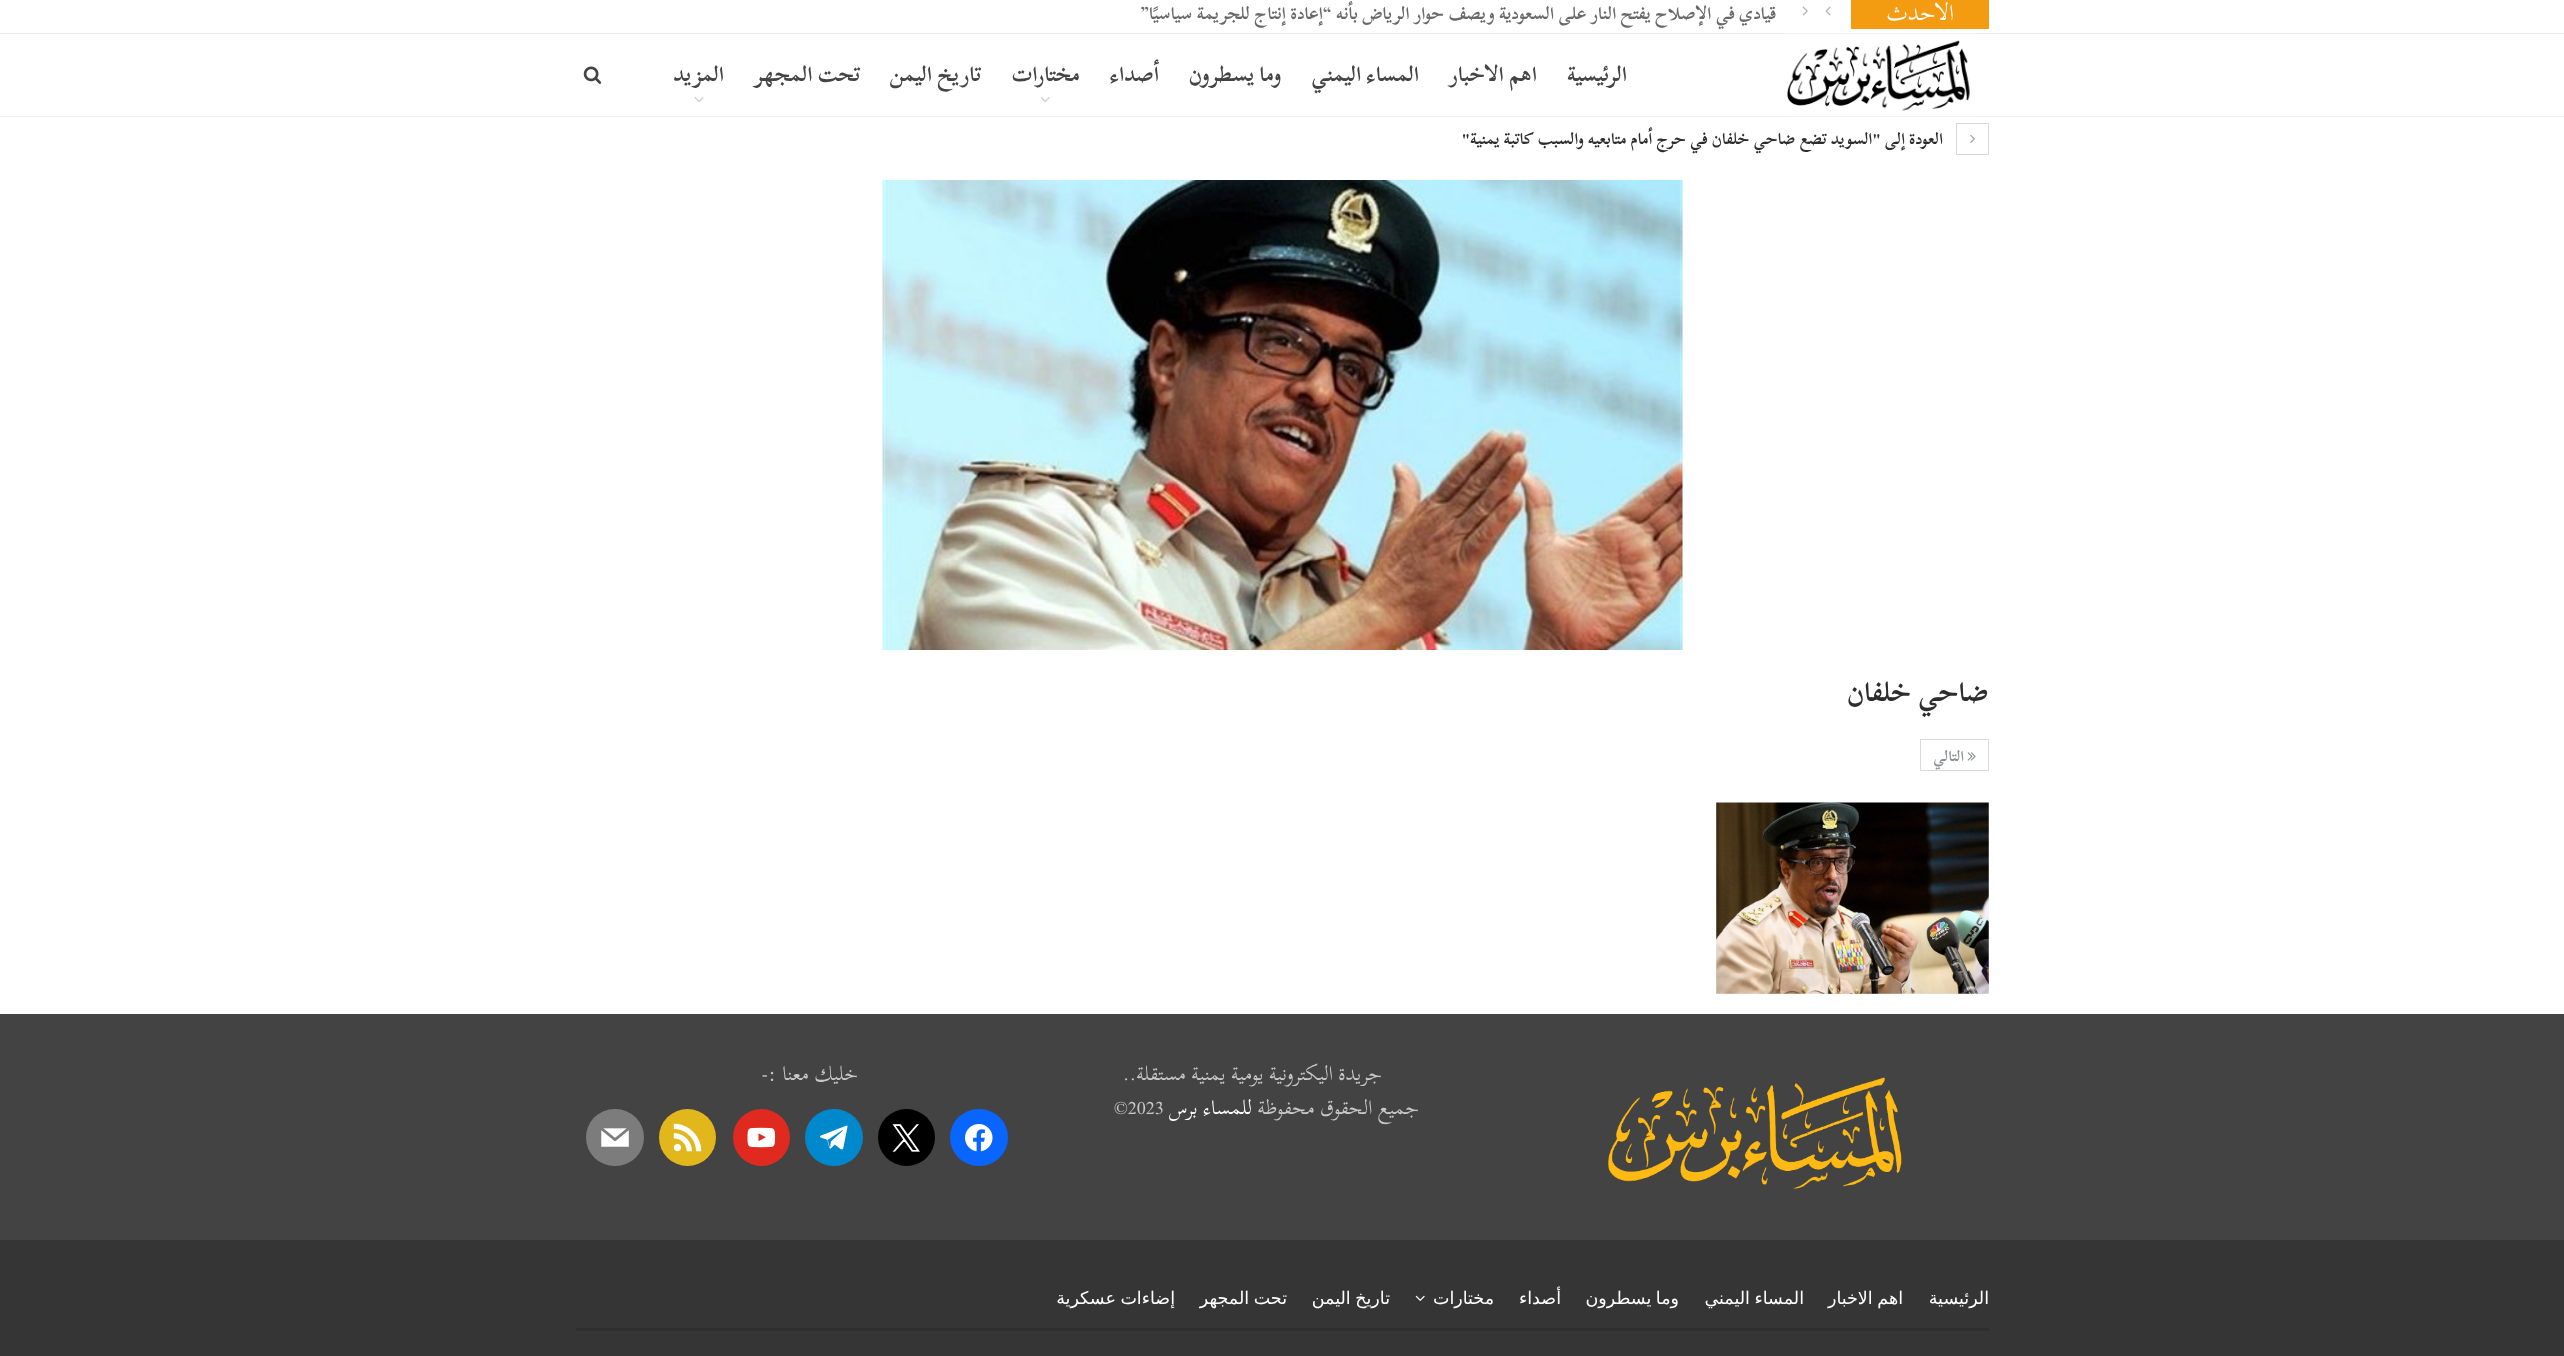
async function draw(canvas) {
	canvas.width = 2564;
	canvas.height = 1356;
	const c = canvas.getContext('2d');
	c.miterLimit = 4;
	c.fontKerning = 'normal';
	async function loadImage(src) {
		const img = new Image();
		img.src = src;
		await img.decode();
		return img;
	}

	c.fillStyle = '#fff';
	c.fillRect(0, 0, 2564, 1356);
	for (const [x, y, w, h, color] of [
		[0, 116, 2564, 1, '#eee'],
		[0, 33, 2564, 1, '#ededed'],
		[1851, 0, 138, 29, '#f39c12'],
	]) {
		c.fillStyle = color;
		c.fillRect(x, y, w, h);
	}
	c.direction = 'rtl';
	c.font = '22.5px Scheherazade New';
	c.fillStyle = '#fff';
	c.fillText('الأحدث', 1954, 20);
	c.drawImage(await loadImage('img1.png'), 1825, 6, 6, 10);
	c.drawImage(await loadImage('img2.png'), 1802, 6, 6, 10);
	c.font = 'bold 17.5px Scheherazade New';
	c.fillStyle = '#696969';
	c.fillText('قيادي في الإصلاح يفتح النار على السعودية ويصف حوار الرياض بأنه “إعادة إنتاج للجريمة سياسيًا”', 1776, 19);
	c.drawImage(await loadImage('img3.png'), 1785, 33, 191, 84);
	c.font = 'bold 21.25px "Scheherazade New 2"';
	c.fillStyle = '#444';
	for (const [text, x, y] of [
		['الرئيسية', 1627, 81],
		['اهم الاخبار', 1537, 81],
		['المساء اليمني', 1419, 81],
		['وما يسطرون', 1281, 81],
		['أصداء', 1159, 81],
		['مختارات', 1080, 81],
	]) {
		c.fillText(text, x, y);
	}
	c.drawImage(await loadImage('img4.png'), 1040, 97, 10, 6);
	for (const [text, x, y] of [
		['تاريخ اليمن', 981, 81],
		['تحت المجهر', 860, 81],
		['المزيد', 724, 81],
	]) {
		c.fillText(text, x, y);
	}
	c.drawImage(await loadImage('img5.png'), 694, 97, 10, 5);
	c.drawImage(await loadImage('img6.png'), 583, 66, 19, 18);
	c.strokeStyle = '#d8d8d8';
	c.strokeRect(1956.5, 123.5, 32, 31);
	c.drawImage(await loadImage('img7.png'), 1970, 134, 5, 9);
	c.font = 'bold 16.25px Scheherazade New';
	c.fillStyle = '#2d2d2d';
	c.fillText('العودة إلى "السويد تضع ضاحي خلفان في حرج أمام متابعيه والسبب كاتبة يمنية"', 1943, 144);
	c.drawImage(await loadImage('img8.png'), 882, 180, 801, 470);
	c.font = 'bold 27.5px Scheherazade New';
	c.fillText('ضاحي خلفان', 1989, 701);
	c.strokeStyle = '#dadada';
	c.strokeRect(1920.5, 739.5, 68, 31);
	c.drawImage(await loadImage('img9.png'), 1967, 752, 9, 9);
	c.font = 'bold 15px Scheherazade New';
	c.fillStyle = '#8a8f92';
	c.fillText('التالي', 1964, 761);
	c.fillStyle = '#eee';
	c.fillRect(1716, 803, 273, 191);
	c.drawImage(await loadImage('img10.png'), 1716, 802, 273, 192);
	c.fillStyle = '#434343';
	c.fillRect(0, 1014, 2564, 226);
	c.font = '20px Scheherazade New';
	c.fillStyle = '#c8c8c8';
	c.fillText('جريدة اليكترونية يومية يمنية مستقلة..', 1382, 1080);
	c.fillText('جميع الحقوق محفوظة', 1419, 1114);
	c.fillStyle = '#fff';
	c.fillText('للمساء برس', 1252, 1114);
	c.direction = 'ltr';
	c.fillStyle = '#c8c8c8';
	c.fillText('©2023', 1114, 1114);
	c.direction = 'rtl';
	c.fillText('خليك معنا :-', 858, 1080);
	c.fillStyle = '#0866ff';
	c.beginPath();
	c.roundRect(950, 1109, 58, 57, 28.5);
	c.fill();
	c.drawImage(await loadImage('img11.png'), 965, 1124, 28, 28);
	c.fillStyle = '#000';
	c.beginPath();
	c.arc(906.5, 1137.5, 28.5, 0, 2 * Math.PI);
	c.fill();
	c.drawImage(await loadImage('img12.png'), 892, 1124, 28, 28);
	c.fillStyle = '#08c';
	c.beginPath();
	c.roundRect(805, 1109, 58, 57, 28.5);
	c.fill();
	c.drawImage(await loadImage('img13.png'), 820, 1125, 28, 25);
	c.fillStyle = '#e02a20';
	c.beginPath();
	c.arc(761.5, 1137.5, 28.5, 0, 2 * Math.PI);
	c.fill();
	c.drawImage(await loadImage('img14.png'), 747, 1127, 29, 21);
	c.fillStyle = '#e2b71b';
	c.beginPath();
	c.arc(687.5, 1137.5, 28.5, 0, 2 * Math.PI);
	c.fill();
	c.drawImage(await loadImage('img15.png'), 673, 1123, 29, 29);
	c.fillStyle = '#7c7c7c';
	c.beginPath();
	c.roundRect(586, 1109, 58, 57, 28.5);
	c.fill();
	c.drawImage(await loadImage('img16.png'), 601, 1128, 28, 19);
	c.drawImage(await loadImage('img17.png'), 1608, 1077, 294, 112);
	c.fillStyle = '#353535';
	c.fillRect(0, 1240, 2564, 116);
	c.fillStyle = '#2f2f2f';
	c.fillRect(576, 1328, 1413, 3);
	c.font = '17.5px DejaVu Sans';
	c.fillStyle = '#fff';
	c.fillText('الرئيسية', 1989, 1304);
	c.wordSpacing = '-1px';
	for (const [text, x, y] of [
		['اهم الاخبار', 1903, 1304],
		['المساء اليمني', 1804, 1304],
		['وما يسطرون', 1679, 1304],
	]) {
		c.fillText(text, x, y);
	}
	c.wordSpacing = '0px';
	c.fillText('أصداء', 1561, 1304);
	c.fillText('مختارات', 1494, 1304);
	c.drawImage(await loadImage('img18.png'), 1415, 1295, 10, 6);
	c.wordSpacing = '-1px';
	for (const [text, x, y] of [
		['تاريخ اليمن', 1390, 1304],
		['تحت المجهر', 1287, 1304],
		['إضاءات عسكرية', 1175, 1304],
	]) {
		c.fillText(text, x, y);
	}
}

draw(document.querySelector('canvas'));
